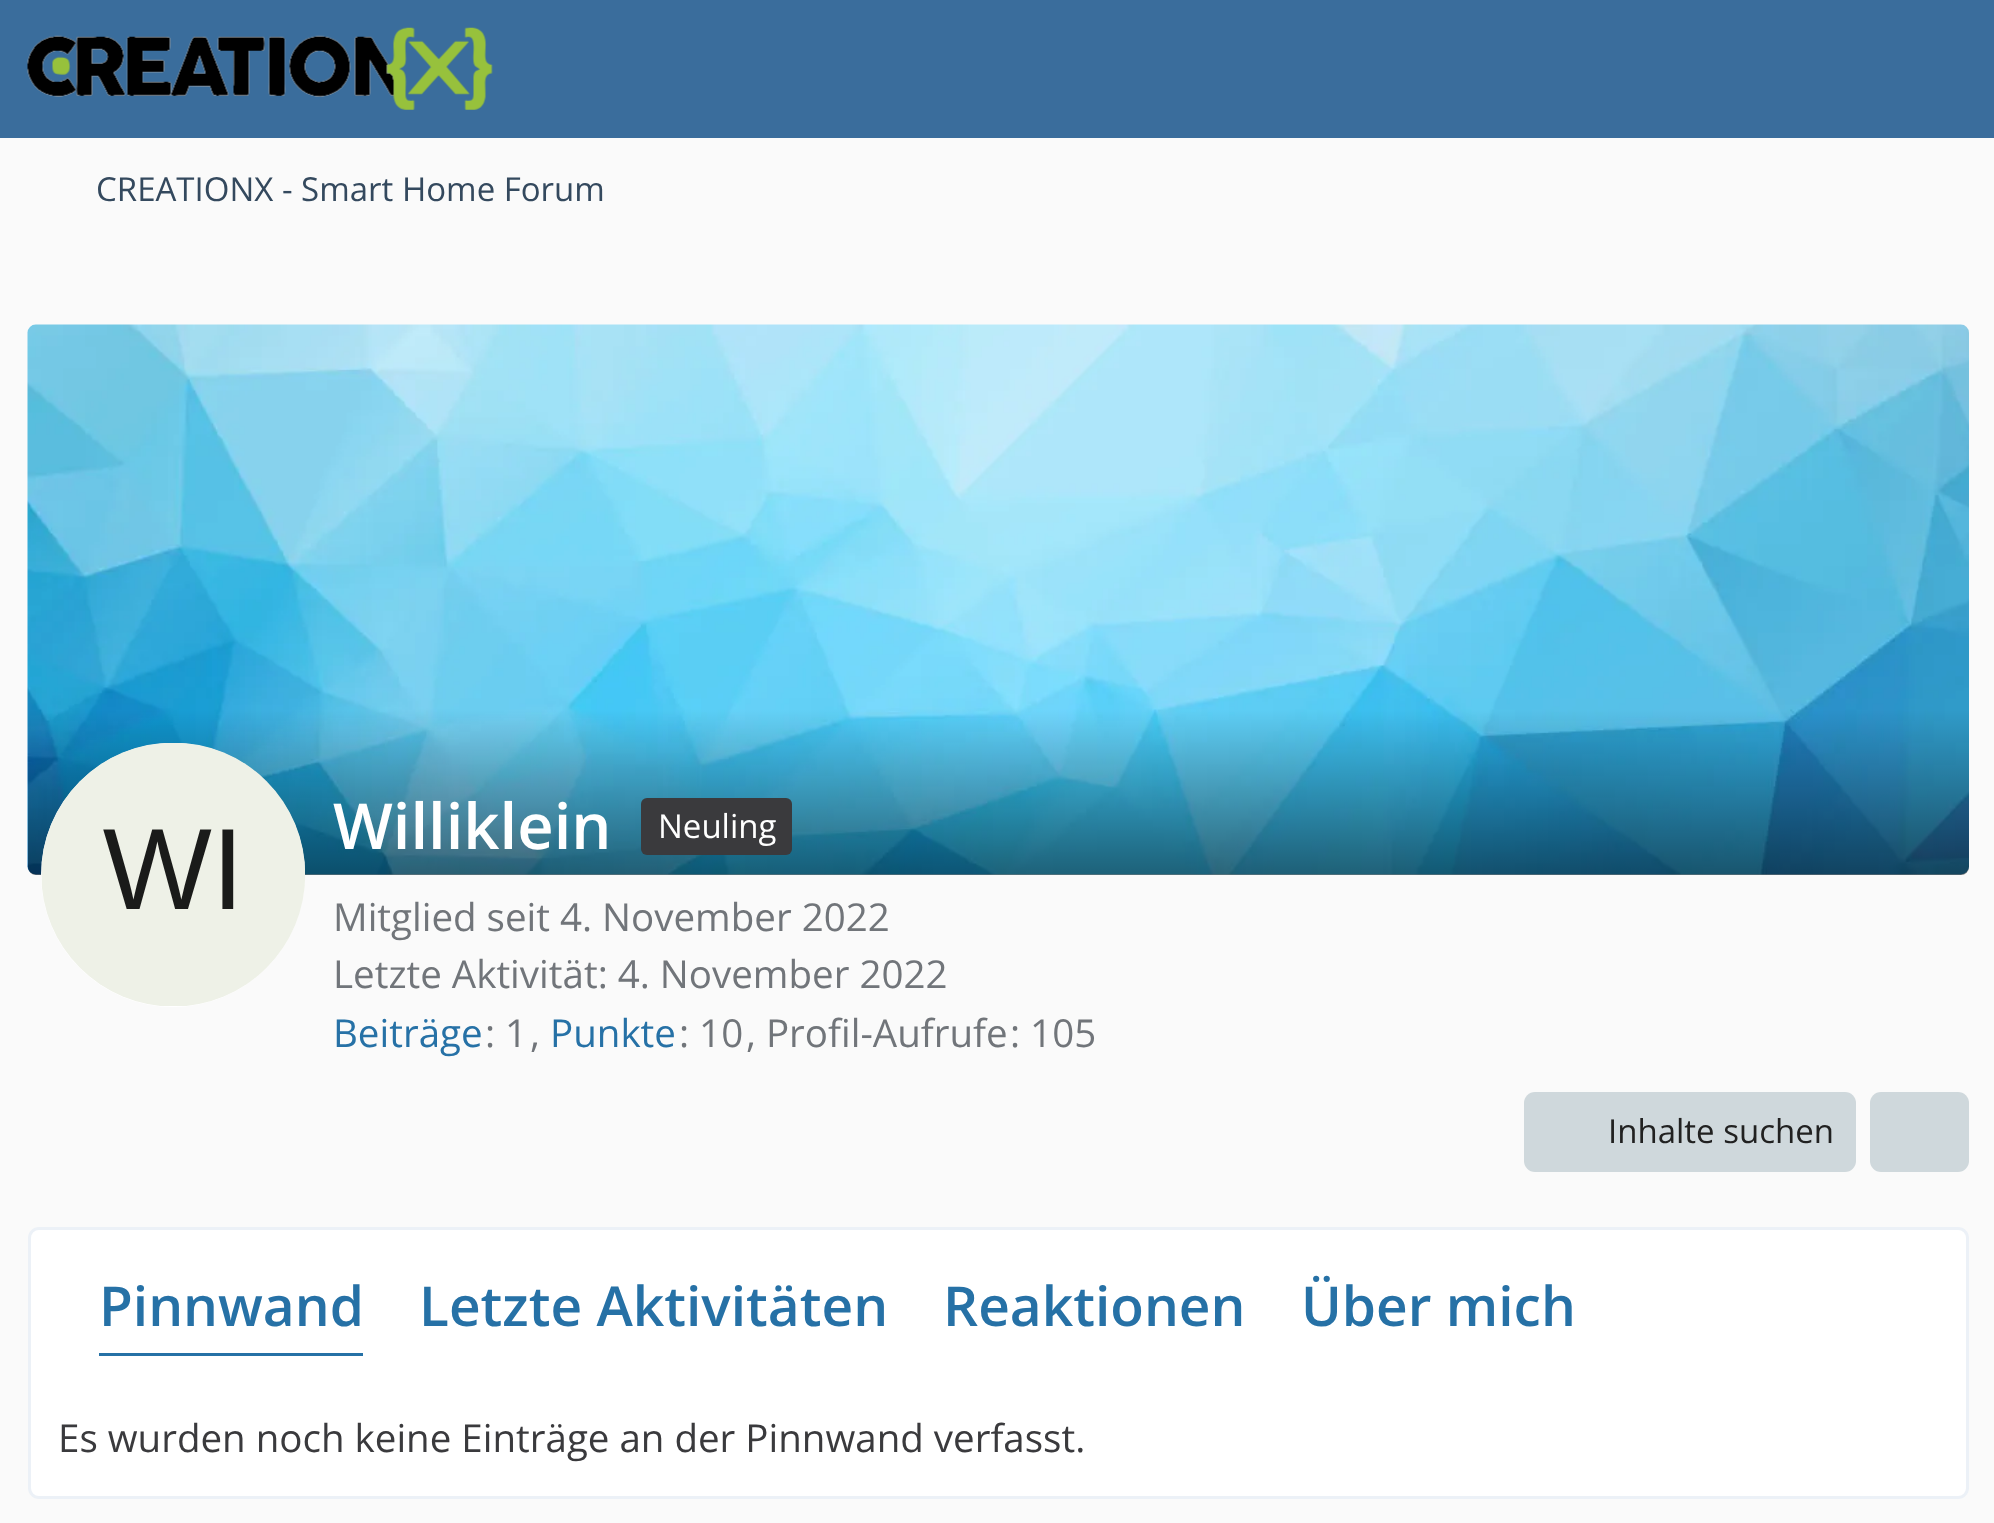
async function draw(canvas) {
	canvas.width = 1994;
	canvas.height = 1523;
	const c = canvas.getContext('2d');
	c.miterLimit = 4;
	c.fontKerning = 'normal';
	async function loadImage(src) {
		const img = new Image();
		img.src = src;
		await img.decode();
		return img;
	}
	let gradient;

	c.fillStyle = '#fafafa';
	c.fillRect(0, 0, 1994, 1523);
	c.fillStyle = '#3a6d9c';
	c.fillRect(0, 0, 1994, 138);
	c.drawImage(await loadImage('img1.png'), 27, 27, 466, 83);
	c.font = '33px Open Sans';
	c.fillStyle = '#34495e';
	c.fillText('CREATIONX - Smart Home Forum', 96, 201);
	c.drawImage(await loadImage('img2.png'), 27, 324, 1942, 551);
	gradient = c.createLinearGradient(998, 324, 998, 875);
	gradient.addColorStop(0.7, '#00000000');
	gradient.addColorStop(1, '#00000080');
	c.fillStyle = gradient;
	c.beginPath();
	c.roundRect(28, 325, 1941, 550, [0, 0, 8, 8]);
	c.fill();
	c.fillStyle = '#fff';
	c.beginPath();
	c.arc(173, 875, 132, 0, 2 * Math.PI);
	c.fill();
	c.drawImage(await loadImage('img3.png'), 41, 743, 264, 263);
	c.font = '600 63.25px Open Sans';
	c.fillText('Williklein', 333, 849);
	c.fillStyle = '#3a3a3d';
	c.beginPath();
	c.roundRect(641, 798, 151, 57, 6);
	c.fill();
	c.font = '33px Open Sans';
	c.fillStyle = '#fff';
	c.fillText('Neuling', 658, 838);
	c.font = '38.5px Open Sans';
	c.fillStyle = '#71757a';
	c.fillText('Mitglied seit 4. November 2022', 333, 931);
	c.fillText('Letzte Aktivität: 4. November 2022', 333, 988);
	c.fillStyle = '#2671a6';
	c.fillText('Beiträge', 333, 1047);
	c.fillStyle = '#71757a';
	c.fillText(': 1', 485, 1047);
	c.fillText(',', 530, 1047);
	c.fillStyle = '#2671a6';
	c.fillText('Punkte', 550, 1047);
	c.fillStyle = '#71757a';
	for (const [text, x, y] of [
		[': 10', 679, 1047],
		[', Profil-Aufrufe', 746, 1047],
		[': 105', 1010, 1047],
	]) {
		c.fillText(text, x, y);
	}
	c.fillStyle = '#cfd8dc';
	c.beginPath();
	c.roundRect(1524, 1092, 332, 80, 11);
	c.fill();
	c.font = '33px Open Sans';
	c.fillStyle = '#212121';
	c.fillText('Inhalte suchen', 1608, 1143);
	c.fillStyle = '#cfd8dc';
	c.beginPath();
	c.roundRect(1870, 1092, 99, 80, 11);
	c.fill();
	c.fillStyle = '#fff';
	c.beginPath();
	c.roundRect(29.5, 1228.5, 1938, 269, 9.5);
	c.fill();
	c.strokeStyle = '#ecf1f7';
	c.lineWidth = 3;
	c.stroke();
	c.font = '600 55px Open Sans';
	c.fillStyle = '#2671a6';
	c.fillText('Pinnwand', 99, 1326);
	c.fillRect(99, 1353, 264, 3);
	for (const [text, x, y] of [
		['Letzte Aktivitäten', 419, 1326],
		['Reaktionen', 943, 1326],
		['Über mich', 1301, 1326],
	]) {
		c.fillText(text, x, y);
	}
	c.font = '38.5px Open Sans';
	c.fillStyle = '#3a3a3d';
	c.fillText('Es wurden noch keine Einträge an der Pinnwand verfasst.', 58, 1452);
}

draw(document.querySelector('canvas'));
